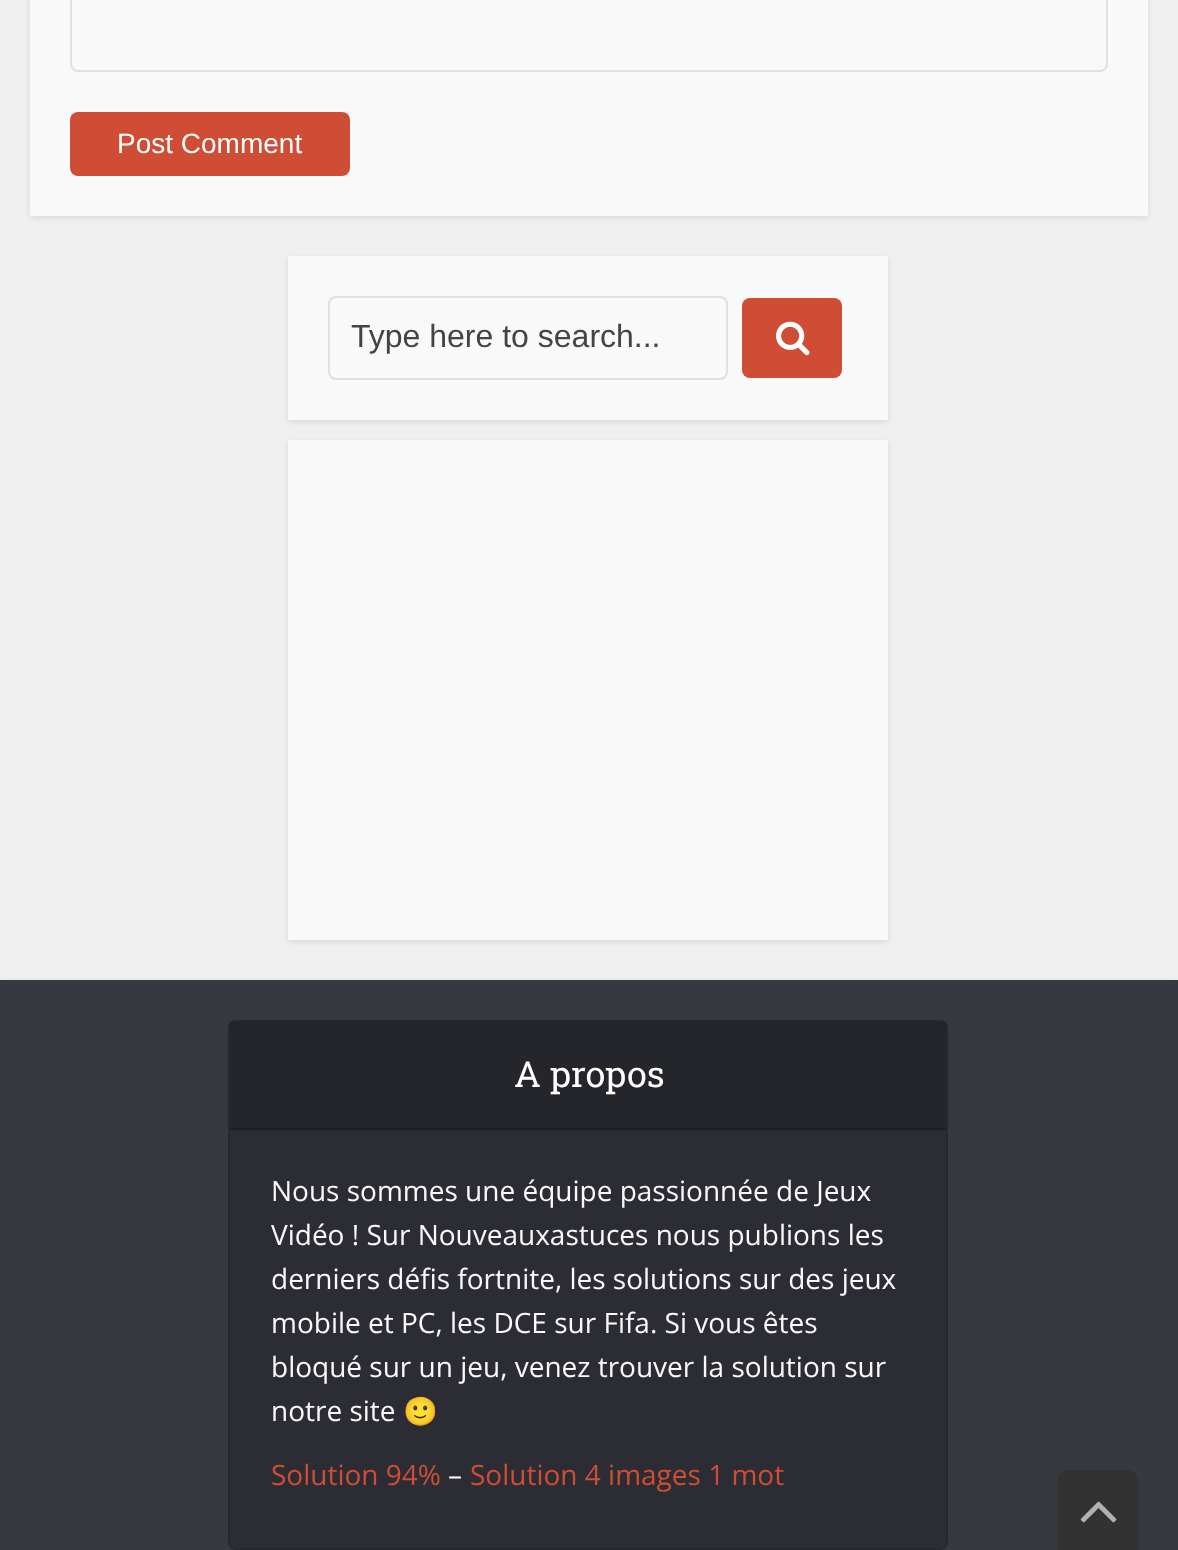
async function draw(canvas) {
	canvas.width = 1178;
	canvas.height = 1550;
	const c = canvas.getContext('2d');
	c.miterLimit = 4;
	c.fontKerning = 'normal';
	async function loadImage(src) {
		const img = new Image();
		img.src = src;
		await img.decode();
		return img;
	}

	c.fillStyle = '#f0f0f0';
	c.fillRect(0, 0, 1178, 1550);
	c.fillStyle = '#0000001a';
	c.filter = 'blur(3px)';
	c.beginPath();
	c.rect(30, -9, 1118, 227);
	c.fill();
	c.filter = 'none';
	c.fillStyle = '#f9f9f9';
	c.fillRect(30, 0, 1118, 216);
	c.beginPath();
	c.roundRect(71, -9, 1036, 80, 7);
	c.strokeStyle = '#e0e0e0';
	c.lineWidth = 2;
	c.stroke();
	c.fillStyle = '#cf4d35';
	c.beginPath();
	c.roundRect(70, 112, 280, 64, 8);
	c.fill();
	c.font = '28px Liberation Sans';
	c.fillStyle = '#fff';
	c.fillText('Post Comment', 117, 153);
	c.fillStyle = '#0000001a';
	c.filter = 'blur(3px)';
	c.beginPath();
	c.rect(288, 258, 600, 164);
	c.fill();
	c.filter = 'none';
	c.fillStyle = '#f9f9f9';
	c.fillRect(288, 256, 600, 164);
	c.beginPath();
	c.roundRect(329, 297, 398, 82, 7);
	c.stroke();
	c.font = '32px Liberation Sans';
	c.fillStyle = '#444';
	c.fillText('Type here to search...', 351, 347);
	c.fillStyle = '#cf4d35';
	c.beginPath();
	c.roundRect(742, 298, 100, 80, 8);
	c.fill();
	c.drawImage(await loadImage('img1.png'), 776, 321, 34, 35);
	c.fillStyle = '#0000001a';
	c.filter = 'blur(3px)';
	c.beginPath();
	c.rect(288, 442, 600, 500);
	c.fill();
	c.filter = 'none';
	c.fillStyle = '#f9f9f9';
	c.fillRect(288, 440, 600, 500);
	c.fillStyle = '#00000033';
	c.filter = 'blur(4px)';
	c.beginPath();
	c.rect(0, 984, 1178, 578);
	c.fill();
	c.filter = 'none';
	c.fillStyle = '#373941';
	c.fillRect(0, 980, 1178, 570);
	c.fillStyle = '#2c2d34';
	c.beginPath();
	c.roundRect(228, 1020, 720, 530, 8);
	c.fill();
	c.beginPath();
	c.roundRect(229, 1021, 718, 528, 7);
	c.strokeStyle = '#0000001a';
	c.stroke();
	c.fillStyle = '#00000026';
	c.fillRect(230, 1022, 716, 106);
	c.fillStyle = '#1e1f23';
	c.fillRect(230, 1128, 716, 2);
	c.font = '36px Roboto Slab';
	c.fillStyle = '#fff';
	c.fillText('A propos', 514, 1087);
	c.font = '28px Open Sans';
	c.fillStyle = '#f9f9f9';
	for (const [text, x, y] of [
		['Nous sommes une équipe passionnée de Jeux', 271, 1201],
		['Vidéo ! Sur Nouveauxastuces nous publions les', 271, 1245],
		['derniers défis fortnite, les solutions sur des jeux', 271, 1289],
		['mobile et PC, les DCE sur Fifa. Si vous êtes', 271, 1333],
		['bloqué sur un jeu, venez trouver la solution sur', 271, 1377],
		['notre site', 271, 1421],
	]) {
		c.fillText(text, x, y);
	}
	c.font = '28px Noto Color Emoji';
	c.fillText('🙂', 403, 1421);
	c.font = '28px Open Sans';
	c.fillStyle = '#cf4d35';
	c.fillText('Solution 94%', 271, 1485);
	c.fillStyle = '#f9f9f9';
	c.fillText('–', 448, 1485);
	c.fillStyle = '#cf4d35';
	c.fillText('Solution 4 images 1 mot', 470, 1485);
	c.fillStyle = '#323232';
	c.beginPath();
	c.roundRect(1058, 1470, 80, 80, [10, 10, 0, 0]);
	c.fill();
	c.drawImage(await loadImage('img2.png'), 1080, 1501, 37, 22);
}

draw(document.querySelector('canvas'));
